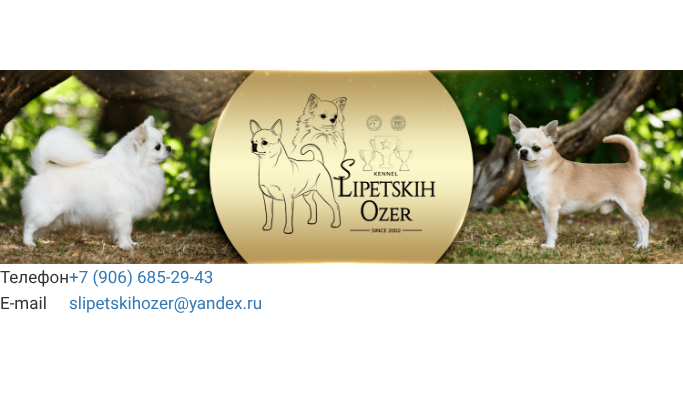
async function draw(canvas) {
	canvas.width = 683;
	canvas.height = 393;
	const c = canvas.getContext('2d');
	c.miterLimit = 4;
	c.fontKerning = 'normal';
	async function loadImage(src) {
		const img = new Image();
		img.src = src;
		await img.decode();
		return img;
	}

	c.fillStyle = '#fff';
	c.fillRect(0, 0, 683, 393);
	c.drawImage(await loadImage('img1.png'), 0, 70, 683, 194);
	c.font = '17px Roboto';
	c.fillStyle = '#333';
	c.fillText('Телефон', 0, 283);
	c.fillStyle = '#337ab7';
	c.fillText('+7 (906) 685-29-43', 69, 283);
	c.fillStyle = '#333';
	c.fillText('E-mail', 0, 309);
	c.fillStyle = '#337ab7';
	c.fillText('slipetskihozer@yandex.ru', 69, 309);
}

draw(document.querySelector('canvas'));
